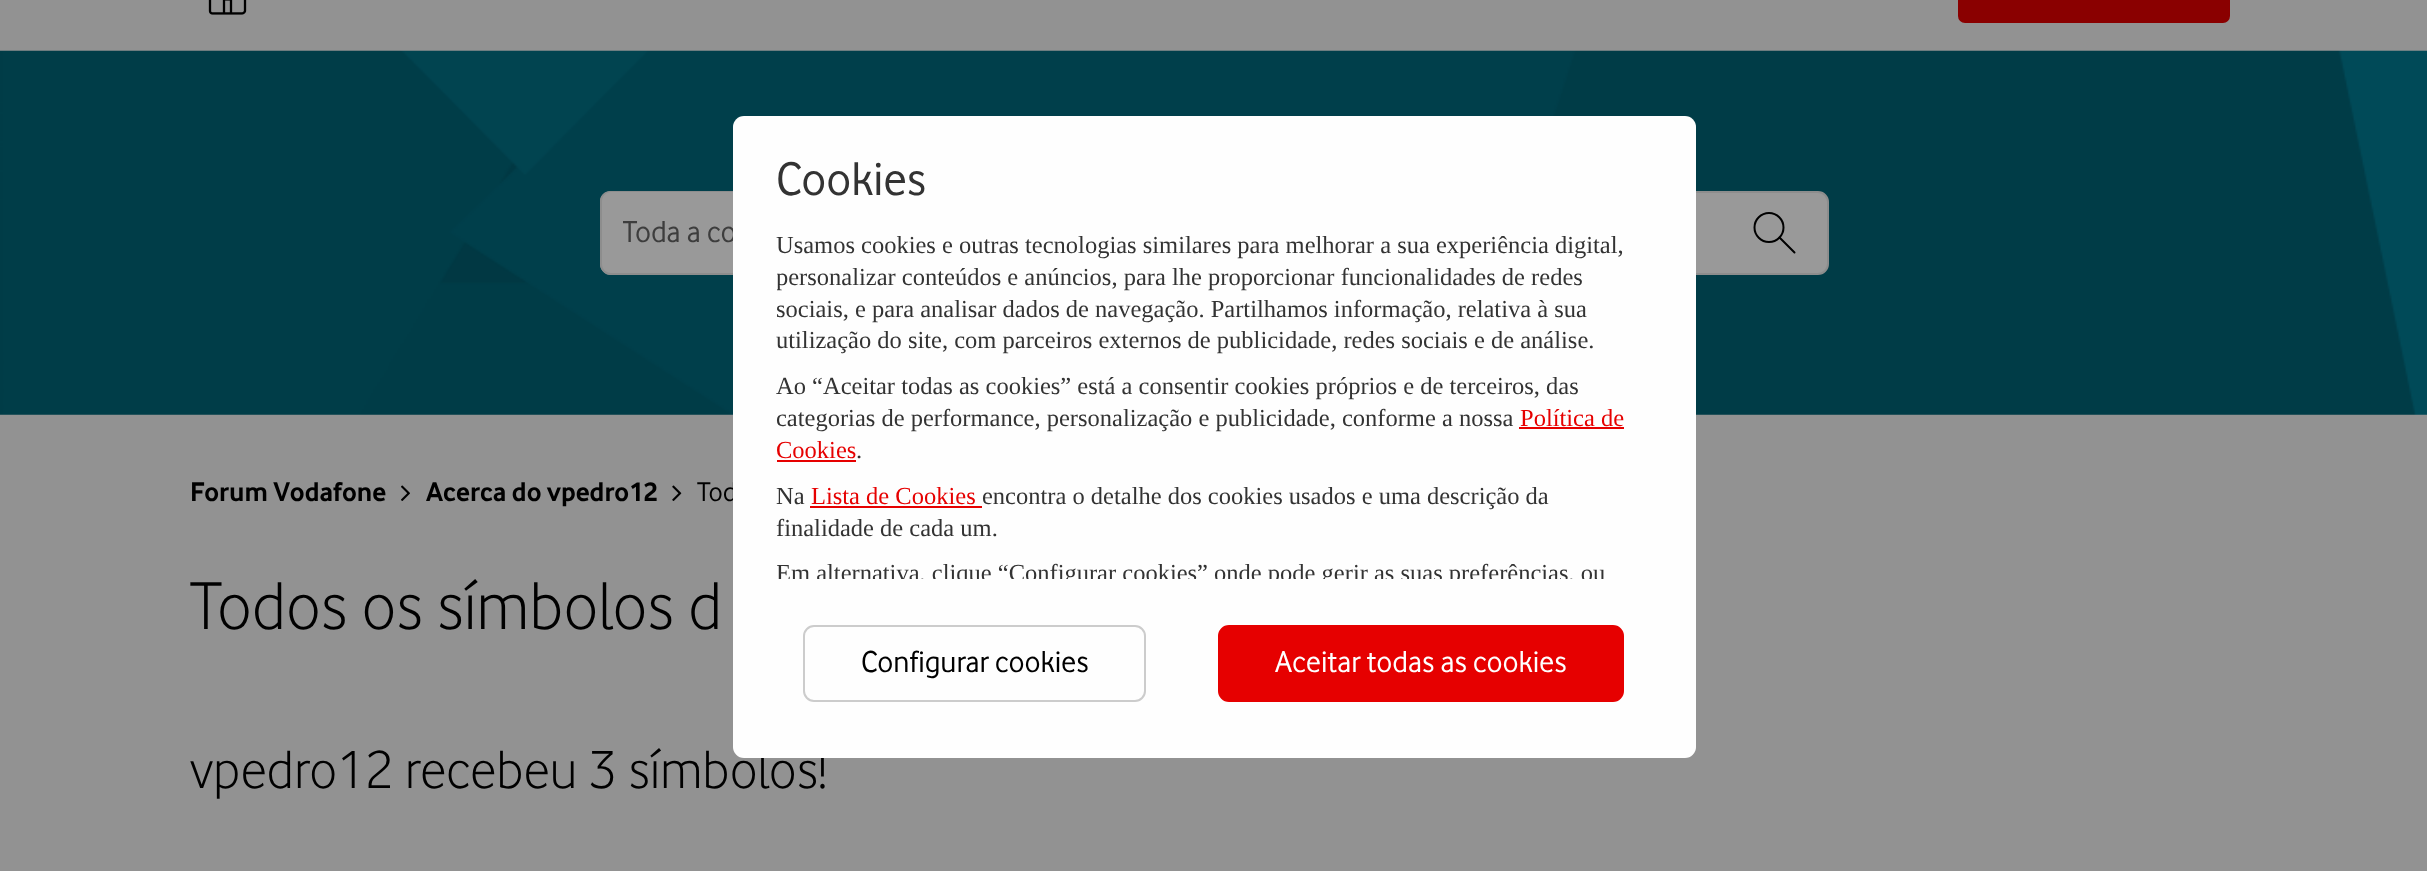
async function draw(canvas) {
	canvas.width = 2427;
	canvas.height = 871;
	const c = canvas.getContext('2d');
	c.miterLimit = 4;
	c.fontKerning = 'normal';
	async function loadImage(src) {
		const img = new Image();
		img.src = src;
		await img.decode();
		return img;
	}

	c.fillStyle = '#929292';
	c.fillRect(0, 0, 2427, 871);
	c.drawImage(await loadImage('img1.png'), 208, 0, 39, 15);
	c.fillStyle = '#8a0000';
	c.beginPath();
	c.roundRect(1959, -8, 270, 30, 6);
	c.fill();
	c.strokeStyle = '#8a0000';
	c.lineWidth = 2;
	c.stroke();
	c.drawImage(await loadImage('img2.png'), 0, 50, 2427, 365);
	c.fillStyle = '#999';
	c.beginPath();
	c.roundRect(600, 191, 326, 84, [11, 0, 0, 11]);
	c.fill();
	c.fillStyle = '#8d8d8d';
	c.beginPath();
	c.moveTo(611, 191);
	c.lineTo(926, 191);
	c.lineTo(926, 275);
	c.lineTo(611, 275);
	c.bezierCurveTo(605, 275, 600, 270, 600, 264);
	c.lineTo(600, 201);
	c.bezierCurveTo(600, 195, 605, 191, 611, 191);
	c.closePath();
	c.moveTo(611, 192);
	c.lineTo(926, 192);
	c.lineTo(926, 273);
	c.lineTo(611, 273);
	c.bezierCurveTo(606, 273, 602, 269, 602, 264);
	c.lineTo(602, 201);
	c.bezierCurveTo(602, 196, 606, 192, 611, 192);
	c.closePath();
	c.fill('evenodd');
	c.save();
	c.beginPath();
	c.rect(623, 205, 240, 54);
	c.clip();
	c.font = '31.5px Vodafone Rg';
	c.fillStyle = '#3d3d3d';
	c.fillText('Toda a co', 622, 242);
	c.restore();
	c.fillStyle = '#999';
	c.beginPath();
	c.roundRect(927, 192, 901, 82, [0, 10, 10, 0]);
	c.fill();
	c.strokeStyle = '#8d8d8d';
	c.stroke();
	c.beginPath();
	c.moveTo(1779.5, 237.5);
	c.lineTo(1794.5, 252.5);
	c.strokeStyle = '#000';
	c.lineCap = 'round';
	c.lineJoin = 'round';
	c.stroke();
	c.beginPath();
	c.arc(1769, 227.5, 14.5, 0, 2 * Math.PI);
	c.stroke();
	c.font = 'bold 28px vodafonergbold';
	c.fillStyle = '#000';
	c.fillText('Forum Vodafone', 190, 501);
	c.drawImage(await loadImage('img3.png'), 401, 485, 9, 16);
	c.fillText('Acerca do vpedro12', 426, 501);
	c.drawImage(await loadImage('img4.png'), 672, 485, 10, 16);
	c.font = '28px Vodafone Rg';
	c.fillText('Tod', 697, 501);
	c.font = '70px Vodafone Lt';
	c.fillText('Todos os símbolos d', 190, 629);
	c.font = '56px Vodafone Lt';
	c.fillText('vpedro12 recebeu 3 símbolos!', 190, 788);
	c.fillStyle = '#fefefe';
	c.beginPath();
	c.roundRect(733, 116, 963, 642, 11);
	c.fill();
	c.font = '49px Vodafone Rg';
	c.fillStyle = '#333';
	c.fillText('Cookies', 776, 195);
	c.font = '24.5px Liberation Serif';
	c.fillText('Usamos cookies e outras tecnologias similares para melhorar a sua experiência digital,', 776, 253);
	c.save();
	c.beginPath();
	c.rect(777, 144, 875, 435);
	c.clip();
	c.fillText('personalizar conteúdos e anúncios, para lhe proporcionar funcionalidades de redes', 776, 285);
	c.restore();
	for (const [text, x, y] of [
		['sociais, e para analisar dados de navegação. Partilhamos informação, relativa à sua', 776, 317],
		['utilização do site, com parceiros externos de publicidade, redes sociais e de análise.', 776, 348],
		['Ao “Aceitar todas as cookies” está a consentir cookies próprios e de terceiros, das', 776, 394],
		['categorias de performance, personalização e publicidade, conforme a nossa', 776, 426],
	]) {
		c.fillText(text, x, y);
	}
	c.fillStyle = '#e60000';
	c.fillText('Política de', 1520, 426);
	c.fillRect(1519, 427, 105, 2);
	c.fillText('Cookies', 776, 458);
	c.fillRect(777, 460, 79, 2);
	c.fillStyle = '#333';
	c.fillText('.', 856, 458);
	c.fillText('Na', 776, 504);
	c.fillStyle = '#e60000';
	c.fillText('Lista de Cookies', 811, 504);
	c.fillRect(810, 506, 172, 2);
	c.fillStyle = '#333';
	c.fillText('encontra o detalhe dos cookies usados e uma descrição da', 982, 504);
	c.fillText('finalidade de cada um.', 776, 536);
	c.save();
	c.beginPath();
	c.rect(777, 144, 875, 435);
	c.clip();
	c.fillText('Em alternativa, clique “Configurar cookies” onde pode gerir as suas preferências, ou', 776, 581);
	c.restore();
	c.beginPath();
	c.roundRect(804, 626, 341, 75, 10);
	c.strokeStyle = '#ccc';
	c.lineJoin = 'miter';
	c.stroke();
	c.font = '31.5px Vodafone Rg';
	c.fillStyle = '#000';
	c.fillText('Configurar cookies', 861, 672);
	c.fillStyle = '#e60000';
	c.beginPath();
	c.roundRect(1219, 626, 404, 75, 10);
	c.fill();
	c.strokeStyle = '#e60000';
	c.stroke();
	c.fillStyle = '#fff';
	c.fillText('Aceitar todas as cookies', 1275, 672);
}

draw(document.querySelector('canvas'));
